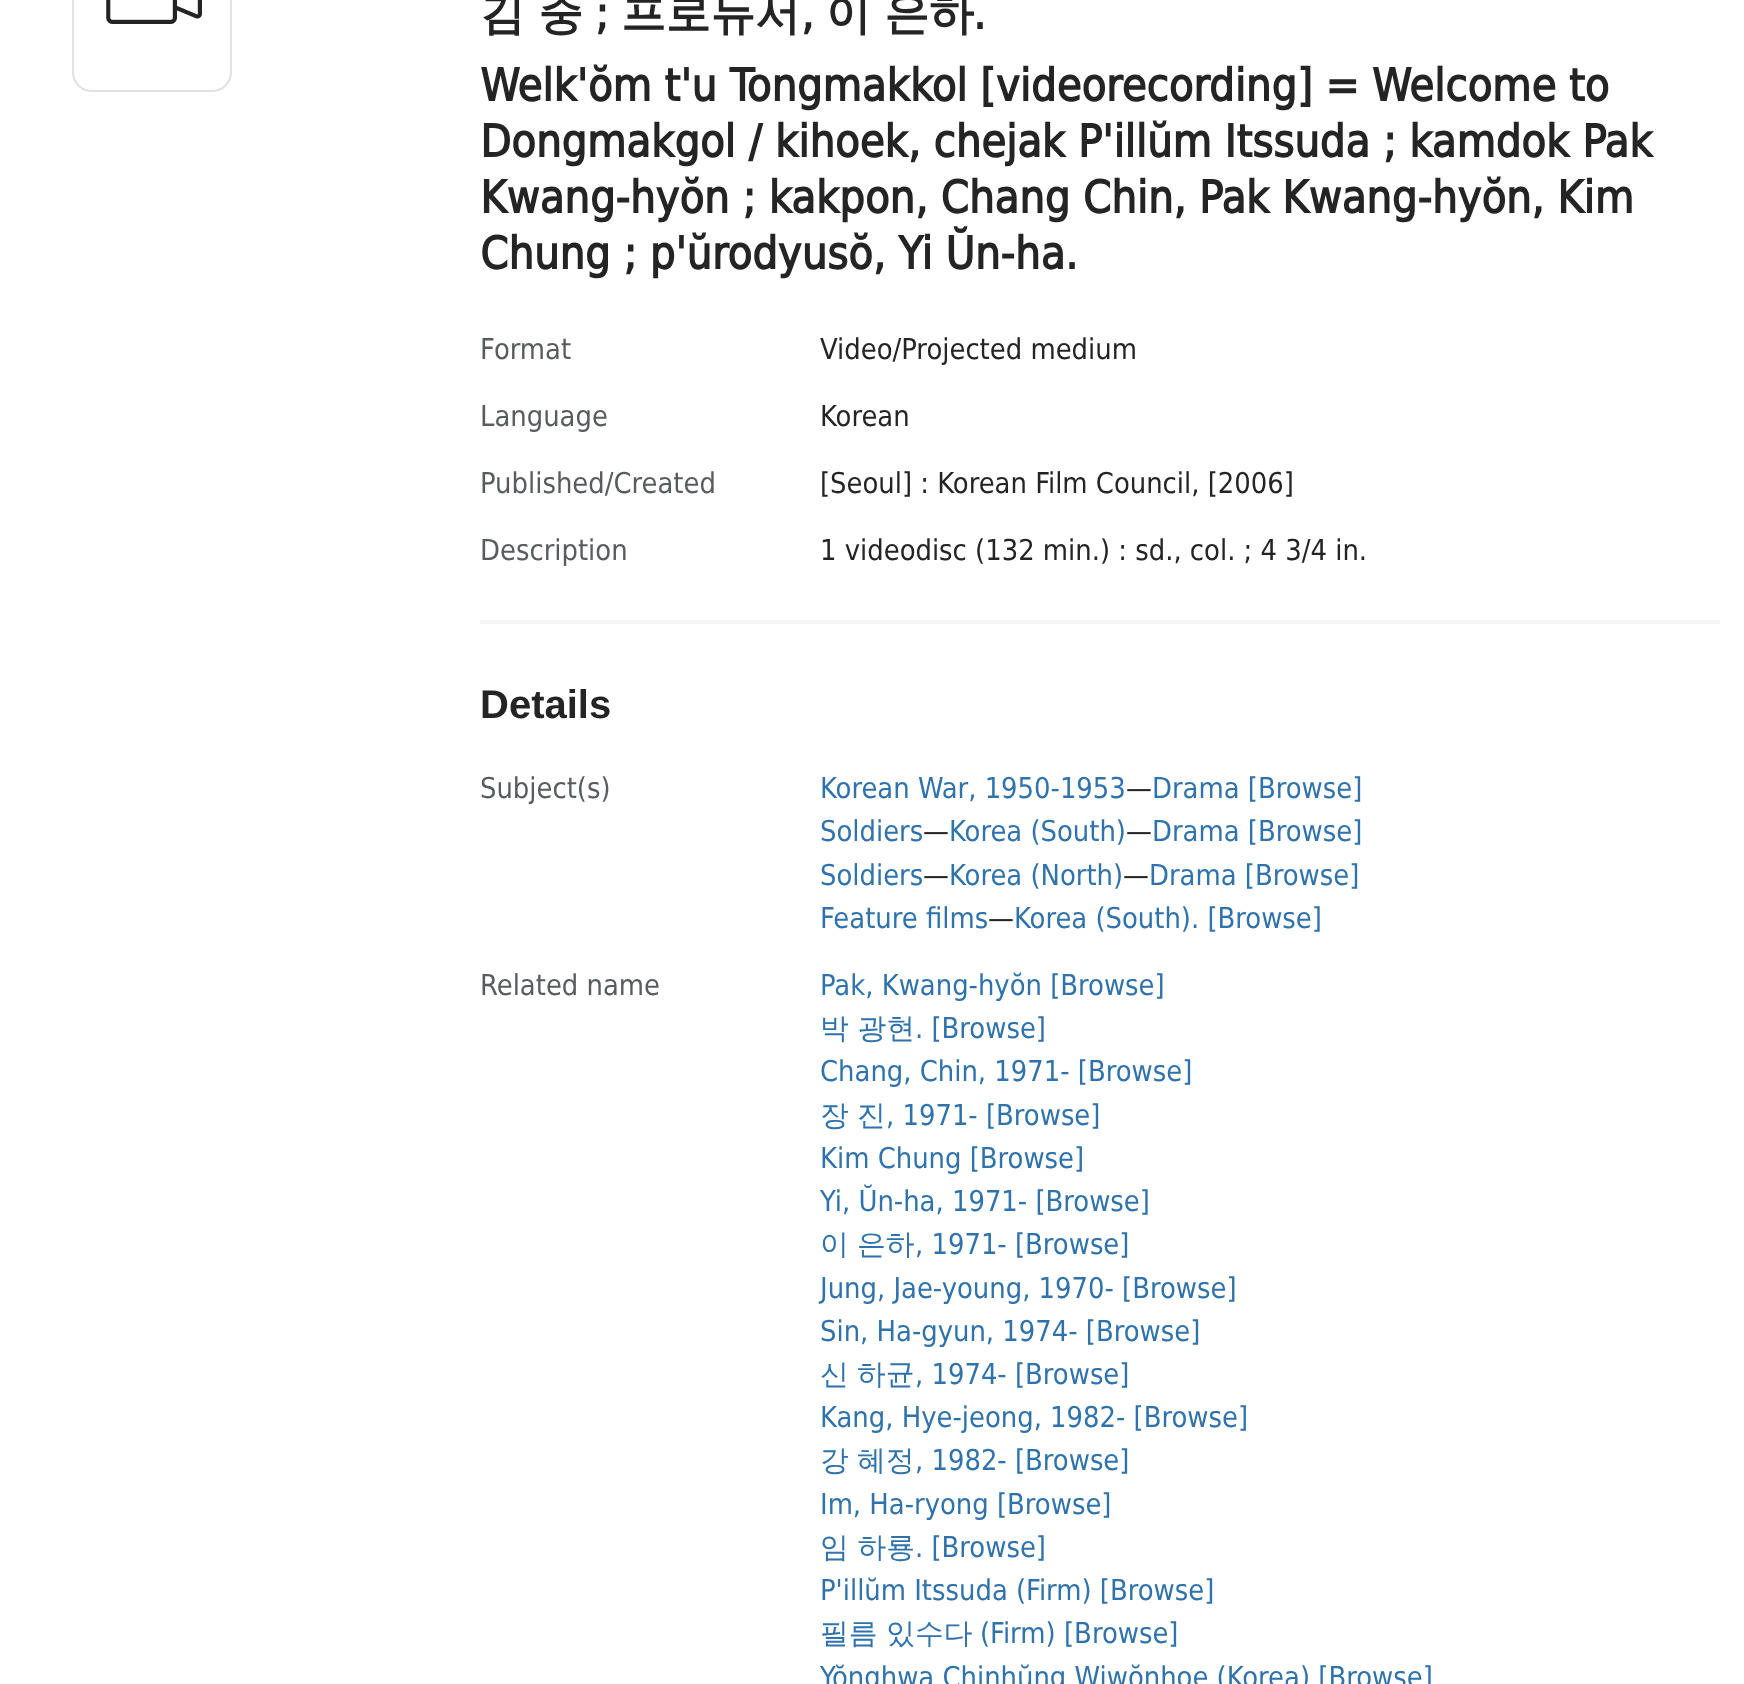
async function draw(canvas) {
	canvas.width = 1744;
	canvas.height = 1684;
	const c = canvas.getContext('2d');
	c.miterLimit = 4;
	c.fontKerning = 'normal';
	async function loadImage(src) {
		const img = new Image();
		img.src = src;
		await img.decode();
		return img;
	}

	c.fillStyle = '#fff';
	c.fillRect(0, 0, 1744, 1684);
	c.beginPath();
	c.roundRect(73, -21, 158, 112, 19);
	c.strokeStyle = '#e1e1e1';
	c.lineWidth = 2;
	c.stroke();
	c.drawImage(await loadImage('img1.png'), 106, 0, 96, 24);
	c.font = 'bold 44.8px WenQuanYi Zen Hei';
	c.fillStyle = '#242424';
	c.fillText('김 중', 480, 29);
	c.font = 'bold 44.8px DejaVu Sans';
	c.fillText(';', 595, 29);
	c.font = 'bold 44.8px WenQuanYi Zen Hei';
	c.fillText('프로듀서', 621, 29);
	c.font = 'bold 44.8px DejaVu Sans';
	c.fillText(',', 801, 29);
	c.font = 'bold 44.8px WenQuanYi Zen Hei';
	c.fillText('이 은하', 826, 29);
	c.font = 'bold 44.8px DejaVu Sans';
	for (const [text, x, y] of [
		['.', 973, 29],
		['Welk\'ŏm t\'u Tongmakkol [videorecording] = Welcome to', 480, 101],
		['Dongmakgol / kihoek, chejak P\'illŭm Itssuda ; kamdok Pak', 480, 157],
		['Kwang-hyŏn ; kakpon, Chang Chin, Pak Kwang-hyŏn, Kim', 480, 213],
		['Chung ; p\'ŭrodyusŏ, Yi Ŭn-ha.', 480, 269],
	]) {
		c.fillText(text, x, y);
	}
	c.fillStyle = '#f5f5f5';
	c.fillRect(480, 620, 1240, 4);
	c.font = '28.8px DejaVu Sans';
	c.fillStyle = '#595c5f';
	c.fillText('Format', 480, 359);
	c.fillStyle = '#242424';
	c.fillText('Video/Projected medium', 820, 359);
	c.fillStyle = '#595c5f';
	c.fillText('Language', 480, 426);
	c.fillStyle = '#242424';
	c.fillText('Korean', 820, 426);
	c.fillStyle = '#595c5f';
	c.fillText('Published/Created', 480, 493);
	c.fillStyle = '#242424';
	c.fillText('[Seoul] : Korean Film Council, [2006]', 820, 493);
	c.fillStyle = '#595c5f';
	c.fillText('Description', 480, 560);
	c.fillStyle = '#242424';
	c.fillText('1 videodisc (132 min.) : sd., col. ; 4 3/4 in.', 820, 560);
	c.font = 'bold 40px Liberation Sans';
	c.fillText('Details', 480, 718);
	c.font = '28.8px DejaVu Sans';
	c.fillStyle = '#595c5f';
	c.fillText('Subject(s)', 480, 798);
	c.fillStyle = '#3072ab';
	c.fillText('Korean War, 1950-1953', 820, 798);
	c.fillStyle = '#242424';
	c.fillText('—', 1126, 798);
	c.fillStyle = '#3072ab';
	c.fillText('Drama [Browse]', 1152, 798);
	c.fillText('Soldiers', 820, 841);
	c.fillStyle = '#242424';
	c.fillText('—', 923, 841);
	c.fillStyle = '#3072ab';
	c.fillText('Korea (South)', 949, 841);
	c.fillStyle = '#242424';
	c.fillText('—', 1126, 841);
	c.fillStyle = '#3072ab';
	c.fillText('Drama [Browse]', 1152, 841);
	c.fillText('Soldiers', 820, 885);
	c.fillStyle = '#242424';
	c.fillText('—', 923, 885);
	c.fillStyle = '#3072ab';
	c.fillText('Korea (North)', 949, 885);
	c.fillStyle = '#242424';
	c.fillText('—', 1123, 885);
	c.fillStyle = '#3072ab';
	c.fillText('Drama [Browse]', 1149, 885);
	c.fillText('Feature films', 820, 928);
	c.fillStyle = '#242424';
	c.fillText('—', 988, 928);
	c.fillStyle = '#3072ab';
	c.fillText('Korea (South). [Browse]', 1014, 928);
	c.fillStyle = '#595c5f';
	c.fillText('Related name', 480, 995);
	c.fillStyle = '#3072ab';
	c.fillText('Pak, Kwang-hyŏn [Browse]', 820, 995);
	c.font = '500 28.8px WenQuanYi Zen Hei';
	c.fillText('박 광현', 820, 1038);
	c.font = '28.8px DejaVu Sans';
	c.fillText('. [Browse]', 915, 1038);
	c.fillText('Chang, Chin, 1971- [Browse]', 820, 1081);
	c.font = '500 28.8px WenQuanYi Zen Hei';
	c.fillText('장', 820, 1125);
	c.fillText('진', 857, 1125);
	c.font = '28.8px DejaVu Sans';
	for (const [text, x, y] of [
		[', 1971- [Browse]', 886, 1125],
		['Kim Chung [Browse]', 820, 1168],
		['Yi, Ŭn-ha, 1971- [Browse]', 820, 1211],
	]) {
		c.fillText(text, x, y);
	}
	c.font = '500 28.8px WenQuanYi Zen Hei';
	c.fillText('이', 820, 1254);
	c.fillText('은하', 857, 1254);
	c.font = '28.8px DejaVu Sans';
	for (const [text, x, y] of [
		[', 1971- [Browse]', 915, 1254],
		['Jung, Jae-young, 1970- [Browse]', 820, 1298],
		['Sin, Ha-gyun, 1974- [Browse]', 820, 1341],
	]) {
		c.fillText(text, x, y);
	}
	c.font = '500 28.8px WenQuanYi Zen Hei';
	c.fillText('신', 820, 1384);
	c.fillText('하균', 857, 1384);
	c.font = '28.8px DejaVu Sans';
	c.fillText(', 1974- [Browse]', 915, 1384);
	c.fillText('Kang, Hye-jeong, 1982- [Browse]', 820, 1427);
	c.font = '500 28.8px WenQuanYi Zen Hei';
	c.fillText('강', 820, 1470);
	c.fillText('혜정', 857, 1470);
	c.font = '28.8px DejaVu Sans';
	c.fillText(', 1982- [Browse]', 915, 1470);
	c.fillText('Im, Ha-ryong [Browse]', 820, 1514);
	c.font = '500 28.8px WenQuanYi Zen Hei';
	c.fillText('임 하룡', 820, 1557);
	c.font = '28.8px DejaVu Sans';
	c.fillText('. [Browse]', 915, 1557);
	c.fillText('P\'illŭm Itssuda (Firm) [Browse]', 820, 1600);
	c.font = '500 28.8px WenQuanYi Zen Hei';
	c.fillText('필름 있수다', 820, 1643);
	c.font = '28.8px DejaVu Sans';
	for (const [text, x, y] of [
		['(Firm)', 980, 1643],
		['[Browse]', 1064, 1643],
		['Yŏnghwa Chinhŭng Wiwŏnhoe (Korea) [Browse]', 820, 1687],
	]) {
		c.fillText(text, x, y);
	}
}

draw(document.querySelector('canvas'));
